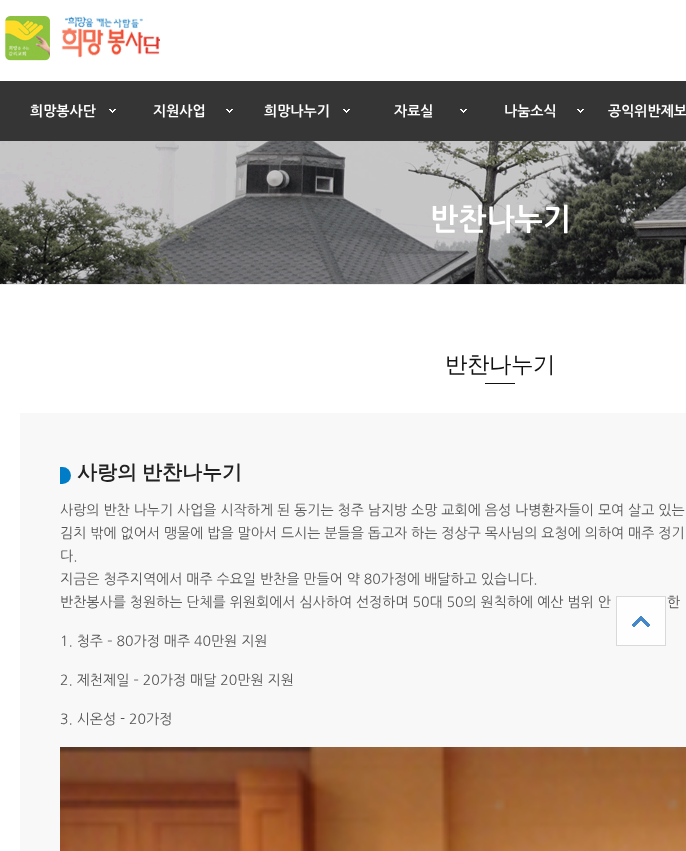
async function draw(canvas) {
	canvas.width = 686;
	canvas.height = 851;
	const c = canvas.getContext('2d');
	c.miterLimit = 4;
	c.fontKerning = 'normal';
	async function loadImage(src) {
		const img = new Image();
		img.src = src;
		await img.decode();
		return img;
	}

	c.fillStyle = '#fff';
	c.fillRect(0, 0, 686, 851);
	c.fillStyle = '#353535';
	c.fillRect(0, 81, 686, 60);
	c.drawImage(await loadImage('img1.png'), 5, 15, 155, 46);
	c.drawImage(await loadImage('img2.png'), 109, 109, 7, 4);
	c.font = 'bold 14px NanumGothic';
	c.fillStyle = '#fff';
	c.fillText('희망봉사단', 30, 116);
	c.drawImage(await loadImage('img2.png'), 226, 109, 7, 4);
	c.fillText('지원사업', 153, 116);
	c.drawImage(await loadImage('img2.png'), 343, 109, 7, 4);
	c.fillText('희망나누기', 264, 116);
	c.drawImage(await loadImage('img2.png'), 460, 109, 7, 4);
	c.fillText('자료실', 394, 116);
	c.drawImage(await loadImage('img2.png'), 577, 109, 7, 4);
	c.fillText('나눔소식', 504, 116);
	c.fillText('공익위반제보', 608, 116);
	c.drawImage(await loadImage('img3.png'), 0, 141, 686, 143);
	c.fillStyle = '#eee';
	c.fillRect(0, 284, 686, 1);
	c.font = 'bold 30px NanumGothic';
	c.fillStyle = '#fff';
	c.fillText('반찬나누기', 430, 230);
	c.letterSpacing = '-0.5px';
	c.font = '500 22.5px WenQuanYi Zen Hei';
	c.fillStyle = '#111';
	c.fillText('반찬나누기', 445, 372);
	c.fillRect(485, 383, 30, 1);
	c.fillStyle = '#f8f8f8';
	c.fillRect(20, 413, 666, 438);
	c.fillStyle = '#017dc7';
	c.beginPath();
	c.roundRect(60, 467, 11, 17, [0, 8.5, 8.5, 0]);
	c.fill();
	c.letterSpacing = '0px';
	c.wordSpacing = '-1px';
	c.font = 'bold 20px WenQuanYi Zen Hei';
	c.fillStyle = '#222';
	c.fillText('사랑의 반찬나누기', 77, 479);
	c.wordSpacing = '0px';
	c.font = '14px NanumGothic';
	c.fillStyle = '#555';
	for (const [text, x, y] of [
		['사랑의 반찬 나누기 사업을 시작하게 된 동기는 청주 남지방 소망 교회에 음성 나병환자들이 모여 살고 있는', 60, 515],
		['김치 밖에 없어서 맹물에 밥을 말아서 드시는 분들을 돕고자 하는 정상구 목사님의 요청에 의하여 매주 정기', 60, 538],
		['다.', 60, 561],
		['지금은 청주지역에서 매주 수요일 반찬을 만들어 약 80가정에 배달하고 있습니다.', 60, 584],
		['반찬봉사를 청원하는 단체를 위원회에서 심사하여 선정하며 50대 50의 원칙하에 예산 범위 안', 60, 607],
		['한', 667, 607],
		['1. 청주 – 80가정 매주 40만원 지원', 60, 646],
		['2. 제천제일 – 20가정 매달 20만원 지원', 60, 685],
		['3. 시온성 - 20가정', 60, 724],
	]) {
		c.fillText(text, x, y);
	}
	c.drawImage(await loadImage('img4.png'), 60, 747, 626, 104);
	c.drawImage(await loadImage('img5.png'), 616, 596, 50, 50);
}

draw(document.querySelector('canvas'));
